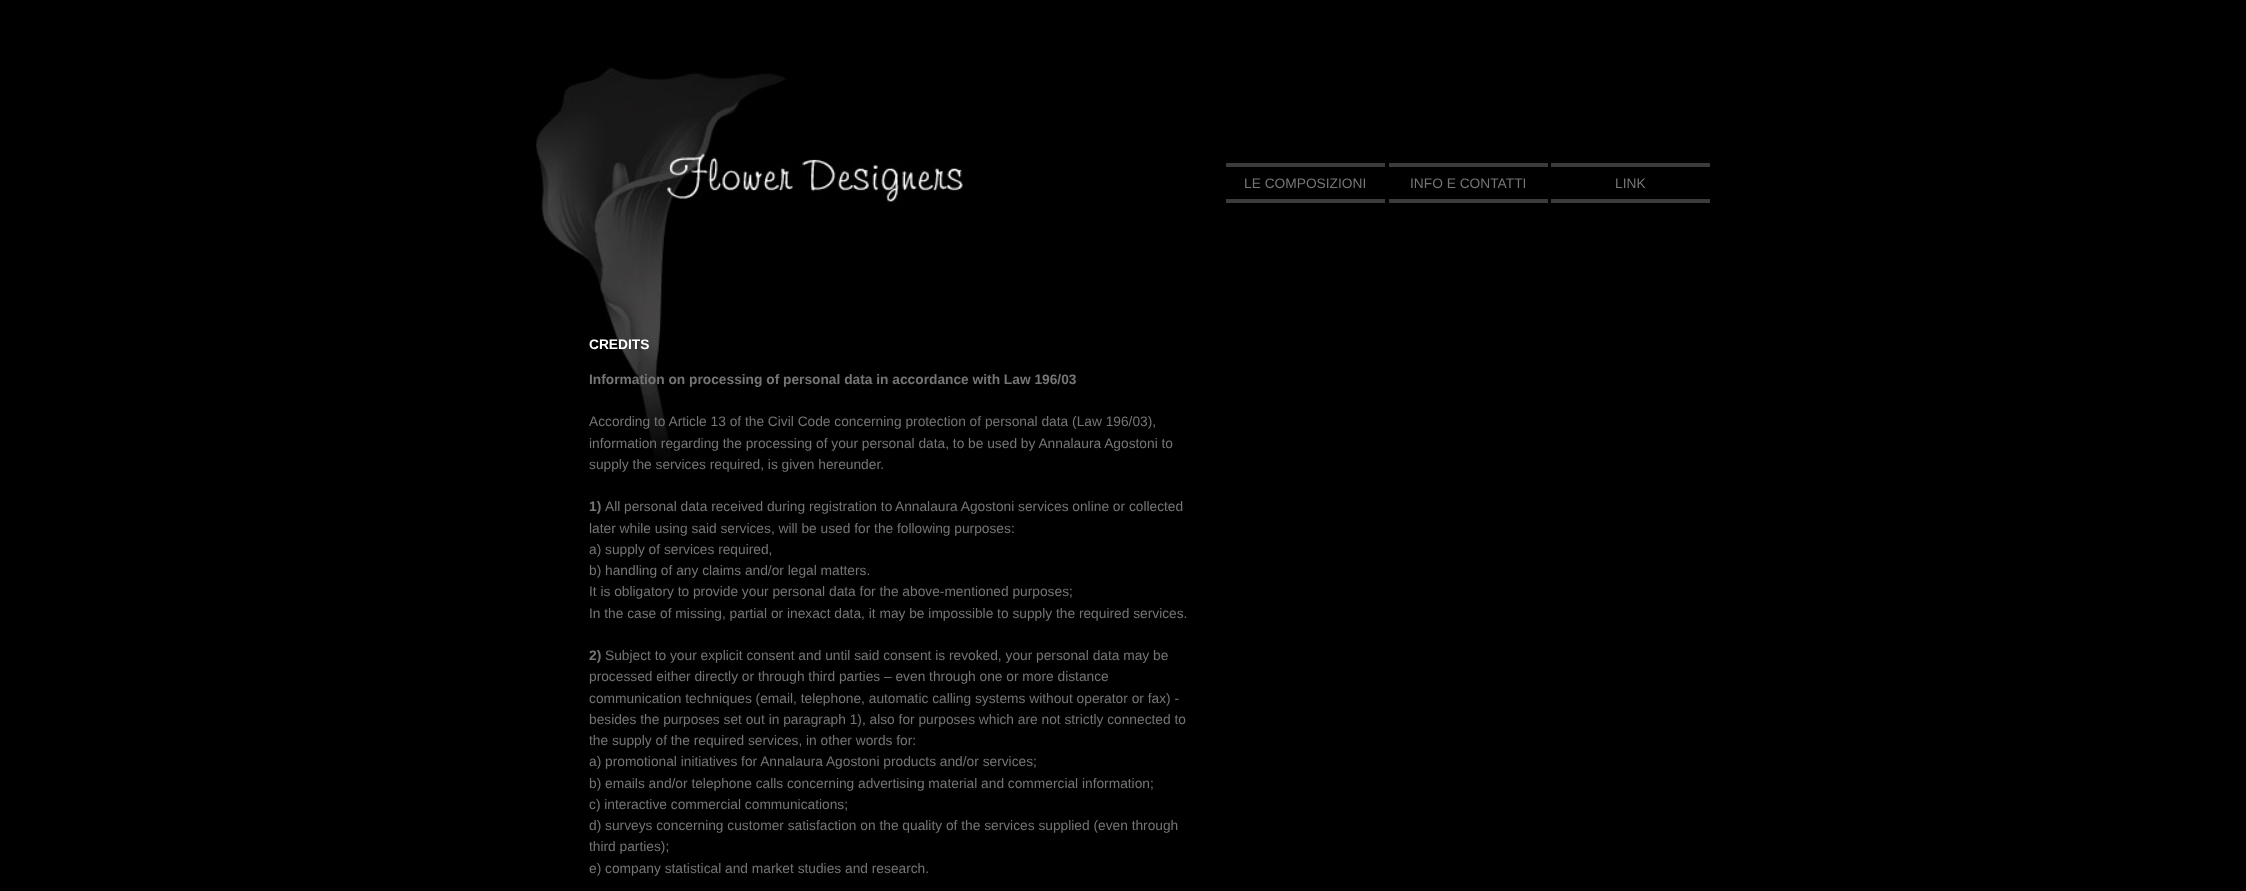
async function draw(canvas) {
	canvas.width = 2246;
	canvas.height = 891;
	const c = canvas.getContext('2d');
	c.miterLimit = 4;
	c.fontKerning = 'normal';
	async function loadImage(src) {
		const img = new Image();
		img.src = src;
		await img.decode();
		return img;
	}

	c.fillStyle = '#000';
	c.fillRect(0, 0, 2246, 891);
	c.drawImage(await loadImage('img1.png'), 536, 67, 427, 393);
	c.fillStyle = '#3b3b3b';
	c.fillRect(1226, 163, 159, 4);
	c.fillRect(1226, 199, 159, 4);
	c.font = '13.75px Liberation Sans';
	c.fillStyle = '#757575';
	c.fillText('LE COMPOSIZIONI', 1244, 188);
	c.fillStyle = '#3b3b3b';
	c.fillRect(1389, 163, 159, 4);
	c.fillRect(1389, 199, 159, 4);
	c.fillStyle = '#757575';
	c.fillText('INFO E CONTATTI', 1410, 188);
	c.fillStyle = '#3b3b3b';
	c.fillRect(1551, 163, 159, 4);
	c.fillRect(1551, 199, 159, 4);
	c.fillStyle = '#757575';
	c.fillText('LINK', 1615, 188);
	c.font = 'bold 13.75px Liberation Sans';
	c.fillStyle = '#fff';
	c.fillText('CREDITS', 589, 349);
	c.fillStyle = '#757575';
	c.fillText('Information on processing of personal data in accordance with Law 196/03', 589, 384);
	c.font = '13.75px Liberation Sans';
	for (const [text, x, y] of [
		['According to Article 13 of the Civil Code concerning protection of personal data (Law 196/03),', 589, 426],
		['information regarding the processing of your personal data, to be used by Annalaura Agostoni to', 589, 448],
		['supply the services required, is given hereunder.', 589, 469],
	]) {
		c.fillText(text, x, y);
	}
	c.font = 'bold 13.75px Liberation Sans';
	c.fillText('1)', 589, 511);
	c.font = '13.75px Liberation Sans';
	for (const [text, x, y] of [
		['All', 605, 511],
		['personal data received during registration to', 624, 511],
		['Annalaura Agostoni services online or collected', 895, 511],
		['later while using said services, will be used for the following purposes:', 589, 533],
		['a) supply of services required,', 589, 554],
		['b) handling of any claims and/or legal matters.', 589, 575],
		['It is obligatory to provide your personal data for the above-mentioned purposes;', 589, 596],
		['In the case of missing, partial or inexact data, it may be impossible to supply the required services.', 589, 618],
	]) {
		c.fillText(text, x, y);
	}
	c.font = 'bold 13.75px Liberation Sans';
	c.fillText('2)', 589, 660);
	c.font = '13.75px Liberation Sans';
	for (const [text, x, y] of [
		['Subject to your explicit consent and until said consent is revoked, your personal data may be', 605, 660],
		['processed either directly or through third parties – even through one or more distance', 589, 681],
		['communication techniques (email, telephone, automatic calling systems without operator or fax) -', 589, 703],
		['besides the purposes set out in paragraph 1), also for purposes which are not strictly connected to', 589, 724],
		['the supply of the required services, in other words for:', 589, 745],
		['a) promotional initiatives for Annalaura Agostoni products and/or services;', 589, 766],
		['b) emails and/or telephone calls concerning advertising material and commercial information;', 589, 788],
		['c) interactive commercial communications;', 589, 809],
		['d) surveys concerning customer satisfaction on the quality of the services supplied (even through', 589, 830],
		['third parties);', 589, 851],
		['e) company statistical and market studies and research.', 589, 873],
	]) {
		c.fillText(text, x, y);
	}
}

draw(document.querySelector('canvas'));
